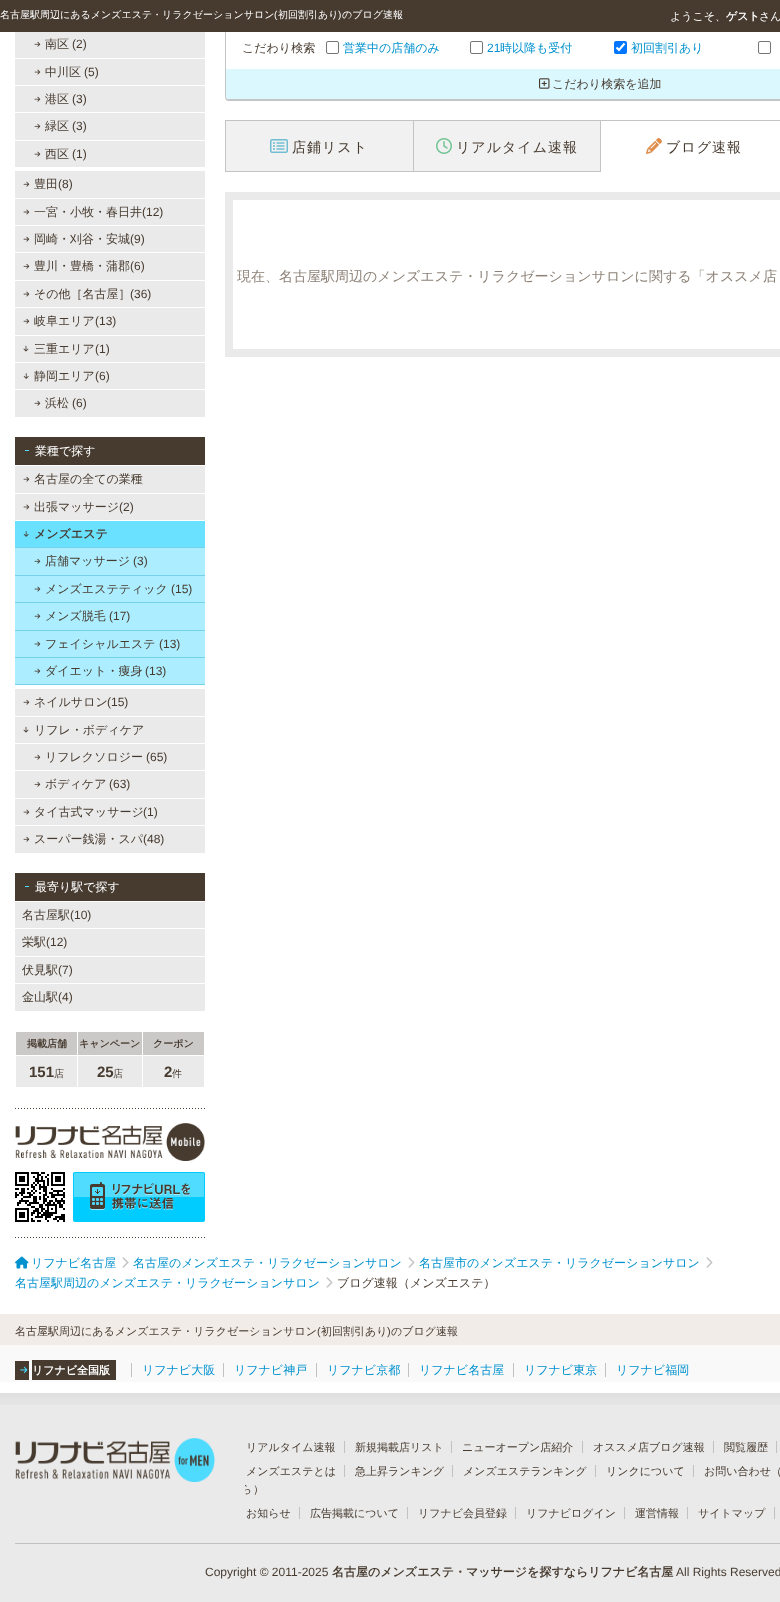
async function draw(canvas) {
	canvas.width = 780;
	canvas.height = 1602;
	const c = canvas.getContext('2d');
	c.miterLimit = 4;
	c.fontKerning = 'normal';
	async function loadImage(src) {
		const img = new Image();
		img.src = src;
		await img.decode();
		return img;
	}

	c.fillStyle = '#fff';
	c.fillRect(0, 0, 780, 1602);
	c.fillStyle = '#c4c4c4';
	c.beginPath();
	c.moveTo(225, 96);
	c.bezierCurveTo(225, 99, 226, 101, 229, 101);
	c.lineTo(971, 101);
	c.bezierCurveTo(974, 101, 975, 99, 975, 96);
	c.bezierCurveTo(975, 98, 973, 100, 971, 100);
	c.lineTo(229, 100);
	c.bezierCurveTo(227, 100, 225, 98, 225, 96);
	c.closePath();
	c.fill();
	c.beginPath();
	c.moveTo(225, 26);
	c.lineTo(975, 26);
	c.lineTo(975, 96);
	c.bezierCurveTo(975, 98, 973, 100, 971, 100);
	c.lineTo(229, 100);
	c.bezierCurveTo(227, 100, 225, 98, 225, 96);
	c.closePath();
	c.moveTo(226, 26);
	c.lineTo(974, 26);
	c.lineTo(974, 96);
	c.bezierCurveTo(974, 98, 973, 99, 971, 99);
	c.lineTo(229, 99);
	c.bezierCurveTo(227, 99, 226, 98, 226, 96);
	c.closePath();
	c.fill('evenodd');
	c.fillStyle = '#473b30';
	c.fillRect(0, 0, 780, 32);
	c.font = '500 10px WenQuanYi Zen Hei';
	c.fillStyle = '#fff';
	c.fillText('名古屋駅周辺にあるメンズエステ・リラクゼーションサロン', 0, 18);
	c.font = '10px Liberation Sans';
	c.fillText('(', 274, 18);
	c.font = '500 10px WenQuanYi Zen Hei';
	c.fillText('初回割引あり', 278, 18);
	c.font = '10px Liberation Sans';
	c.fillText(')', 338, 18);
	c.font = '500 10px WenQuanYi Zen Hei';
	c.fillText('のブログ速報', 342, 18);
	c.font = '500 11px WenQuanYi Zen Hei';
	c.fillText('ようこそ、', 670, 20);
	c.font = 'bold 11px WenQuanYi Zen Hei';
	c.fillText('ゲスト', 726, 20);
	c.font = '500 11px WenQuanYi Zen Hei';
	c.fillText('さん', 759, 20);
	c.fillStyle = '#eaeaea';
	c.fillRect(15, 32, 190, 385);
	c.fillStyle = '#fff';
	c.fillRect(15, 167, 190, 4);
	c.drawImage(await loadImage('img1.png'), 34, 41, 7, 6);
	c.font = '500 12px WenQuanYi Zen Hei';
	c.fillStyle = '#473b30';
	c.fillText('南区', 45, 48);
	c.font = '12px Liberation Sans';
	c.fillText('(2)', 72, 48);
	c.fillStyle = '#fff';
	c.fillRect(15, 58, 190, 1);
	c.drawImage(await loadImage('img2.png'), 34, 69, 7, 6);
	c.font = '500 12px WenQuanYi Zen Hei';
	c.fillStyle = '#473b30';
	c.fillText('中川区', 45, 76);
	c.font = '12px Liberation Sans';
	c.fillText('(5)', 84, 76);
	c.fillStyle = '#fff';
	c.fillRect(15, 85, 190, 1);
	c.drawImage(await loadImage('img3.png'), 34, 96, 7, 6);
	c.font = '500 12px WenQuanYi Zen Hei';
	c.fillStyle = '#473b30';
	c.fillText('港区', 45, 103);
	c.font = '12px Liberation Sans';
	c.fillText('(3)', 72, 103);
	c.fillStyle = '#fff';
	c.fillRect(15, 112, 190, 1);
	c.drawImage(await loadImage('img4.png'), 34, 123, 7, 6);
	c.font = '500 12px WenQuanYi Zen Hei';
	c.fillStyle = '#473b30';
	c.fillText('緑区', 45, 130);
	c.font = '12px Liberation Sans';
	c.fillText('(3)', 72, 130);
	c.fillStyle = '#fff';
	c.fillRect(15, 140, 190, 1);
	c.drawImage(await loadImage('img5.png'), 34, 151, 7, 6);
	c.font = '500 12px WenQuanYi Zen Hei';
	c.fillStyle = '#473b30';
	c.fillText('西区', 45, 158);
	c.font = '12px Liberation Sans';
	c.fillText('(1)', 72, 158);
	c.drawImage(await loadImage('img6.png'), 23, 181, 7, 6);
	c.font = '500 12px WenQuanYi Zen Hei';
	c.fillText('豊田', 34, 188);
	c.font = '12px Liberation Sans';
	c.fillText('(8)', 58, 188);
	c.fillStyle = '#fff';
	c.fillRect(15, 198, 190, 1);
	c.drawImage(await loadImage('img7.png'), 23, 209, 7, 6);
	c.font = '500 12px WenQuanYi Zen Hei';
	c.fillStyle = '#473b30';
	c.fillText('一宮・小牧・春日井', 34, 216);
	c.font = '12px Liberation Sans';
	c.fillText('(12)', 142, 216);
	c.fillStyle = '#fff';
	c.fillRect(15, 225, 190, 1);
	c.drawImage(await loadImage('img8.png'), 23, 236, 7, 6);
	c.font = '500 12px WenQuanYi Zen Hei';
	c.fillStyle = '#473b30';
	c.fillText('岡崎・刈谷・安城', 34, 243);
	c.font = '12px Liberation Sans';
	c.fillText('(9)', 130, 243);
	c.fillStyle = '#fff';
	c.fillRect(15, 252, 190, 1);
	c.drawImage(await loadImage('img9.png'), 23, 263, 7, 6);
	c.font = '500 12px WenQuanYi Zen Hei';
	c.fillStyle = '#473b30';
	c.fillText('豊川・豊橋・蒲郡', 34, 270);
	c.font = '12px Liberation Sans';
	c.fillText('(6)', 130, 270);
	c.fillStyle = '#fff';
	c.fillRect(15, 280, 190, 1);
	c.drawImage(await loadImage('img10.png'), 23, 291, 7, 6);
	c.font = '500 12px WenQuanYi Zen Hei';
	c.fillStyle = '#473b30';
	c.fillText('その他［名古屋］', 34, 298);
	c.font = '12px Liberation Sans';
	c.fillText('(36)', 130, 298);
	c.fillStyle = '#fff';
	c.fillRect(15, 307, 190, 1);
	c.drawImage(await loadImage('img11.png'), 23, 318, 7, 6);
	c.font = '500 12px WenQuanYi Zen Hei';
	c.fillStyle = '#473b30';
	c.fillText('岐阜エリア', 34, 325);
	c.font = '12px Liberation Sans';
	c.fillText('(13)', 95, 325);
	c.fillStyle = '#fff';
	c.fillRect(15, 335, 190, 1);
	c.drawImage(await loadImage('img12.png'), 23, 345, 6, 7);
	c.font = '500 12px WenQuanYi Zen Hei';
	c.fillStyle = '#473b30';
	c.fillText('三重エリア', 34, 353);
	c.font = '12px Liberation Sans';
	c.fillText('(1)', 95, 353);
	c.fillStyle = '#fff';
	c.fillRect(15, 362, 190, 1);
	c.drawImage(await loadImage('img13.png'), 23, 373, 6, 6);
	c.font = '500 12px WenQuanYi Zen Hei';
	c.fillStyle = '#473b30';
	c.fillText('静岡エリア', 34, 380);
	c.font = '12px Liberation Sans';
	c.fillText('(6)', 95, 380);
	c.fillStyle = '#fff';
	c.fillRect(15, 389, 190, 1);
	c.drawImage(await loadImage('img14.png'), 34, 400, 7, 6);
	c.font = '500 12px WenQuanYi Zen Hei';
	c.fillStyle = '#473b30';
	c.fillText('浜松', 45, 407);
	c.font = '12px Liberation Sans';
	c.fillText('(6)', 72, 407);
	for (const [x, y, w, h, color] of [
		[15, 466, 190, 387, '#eaeaea'],
		[15, 437, 190, 28, '#473b30'],
		[25, 450, 4, 1, '#4fdbfe'],
	]) {
		c.fillStyle = color;
		c.fillRect(x, y, w, h);
	}
	c.font = '500 12px WenQuanYi Zen Hei';
	c.fillStyle = '#fff';
	c.fillText('業種で探す', 35, 455);
	c.drawImage(await loadImage('img15.png'), 23, 476, 7, 6);
	c.fillStyle = '#473b30';
	c.fillText('名古屋の全ての業種', 34, 483);
	c.fillStyle = '#fff';
	c.fillRect(15, 493, 190, 1);
	c.drawImage(await loadImage('img16.png'), 23, 504, 7, 6);
	c.fillStyle = '#473b30';
	c.fillText('出張マッサージ', 34, 511);
	c.font = '12px Liberation Sans';
	c.fillText('(2)', 119, 511);
	c.fillStyle = '#6ae1ff';
	c.fillRect(15, 521, 190, 26);
	c.fillStyle = '#fff';
	c.fillRect(15, 520, 190, 1);
	c.drawImage(await loadImage('img17.png'), 23, 531, 6, 6);
	c.font = 'bold 12px WenQuanYi Zen Hei';
	c.fillStyle = '#473b30';
	c.fillText('メンズエステ', 34, 538);
	for (const [x, y, w, h, color] of [
		[15, 685, 190, 4, '#fff'],
		[15, 548, 190, 27, '#aceeff'],
		[15, 547, 190, 1, '#75d1e8'],
		[15, 575, 190, 1, '#75d1e8'],
	]) {
		c.fillStyle = color;
		c.fillRect(x, y, w, h);
	}
	c.drawImage(await loadImage('img18.png'), 34, 558, 7, 6);
	c.font = '500 12px WenQuanYi Zen Hei';
	c.fillStyle = '#473b30';
	c.fillText('店舗マッサージ', 45, 565);
	c.font = '12px Liberation Sans';
	c.fillText('(3)', 133, 565);
	c.fillStyle = '#aceeff';
	c.fillRect(15, 576, 190, 26);
	c.fillStyle = '#75d1e8';
	c.fillRect(15, 602, 190, 1);
	c.drawImage(await loadImage('img19.png'), 34, 586, 7, 6);
	c.font = '500 12px WenQuanYi Zen Hei';
	c.fillStyle = '#473b30';
	c.fillText('メンズエステティック', 45, 593);
	c.font = '12px Liberation Sans';
	c.fillText('(15)', 171, 593);
	c.fillStyle = '#aceeff';
	c.fillRect(15, 603, 190, 27);
	c.fillStyle = '#75d1e8';
	c.fillRect(15, 630, 190, 1);
	c.drawImage(await loadImage('img20.png'), 34, 613, 7, 6);
	c.font = '500 12px WenQuanYi Zen Hei';
	c.fillStyle = '#473b30';
	c.fillText('メンズ脱毛', 45, 620);
	c.font = '12px Liberation Sans';
	c.fillText('(17)', 109, 620);
	c.fillStyle = '#aceeff';
	c.fillRect(15, 631, 190, 26);
	c.fillStyle = '#75d1e8';
	c.fillRect(15, 657, 190, 1);
	c.drawImage(await loadImage('img21.png'), 34, 641, 7, 6);
	c.font = '500 12px WenQuanYi Zen Hei';
	c.fillStyle = '#473b30';
	c.fillText('フェイシャルエステ', 45, 648);
	c.font = '12px Liberation Sans';
	c.fillText('(13)', 159, 648);
	c.fillStyle = '#aceeff';
	c.fillRect(15, 658, 190, 26);
	c.fillStyle = '#75d1e8';
	c.fillRect(15, 684, 190, 1);
	c.drawImage(await loadImage('img22.png'), 34, 668, 7, 6);
	c.font = '500 12px WenQuanYi Zen Hei';
	c.fillStyle = '#473b30';
	c.fillText('ダイエット・痩身', 45, 675);
	c.font = '12px Liberation Sans';
	c.fillText('(13)', 145, 675);
	c.drawImage(await loadImage('img23.png'), 23, 699, 7, 6);
	c.font = '500 12px WenQuanYi Zen Hei';
	c.fillText('ネイルサロン', 34, 706);
	c.font = '12px Liberation Sans';
	c.fillText('(15)', 107, 706);
	c.fillStyle = '#fff';
	c.fillRect(15, 716, 190, 1);
	c.drawImage(await loadImage('img24.png'), 23, 726, 6, 7);
	c.font = '500 12px WenQuanYi Zen Hei';
	c.fillStyle = '#473b30';
	c.fillText('リフレ・ボディケア', 34, 734);
	c.fillStyle = '#fff';
	c.fillRect(15, 743, 190, 1);
	c.drawImage(await loadImage('img25.png'), 34, 754, 7, 6);
	c.fillStyle = '#473b30';
	c.fillText('リフレクソロジー', 45, 761);
	c.font = '12px Liberation Sans';
	c.fillText('(65)', 146, 761);
	c.fillStyle = '#fff';
	c.fillRect(15, 770, 190, 1);
	c.drawImage(await loadImage('img26.png'), 34, 781, 7, 6);
	c.font = '500 12px WenQuanYi Zen Hei';
	c.fillStyle = '#473b30';
	c.fillText('ボディケア', 45, 788);
	c.font = '12px Liberation Sans';
	c.fillText('(63)', 109, 788);
	c.fillStyle = '#fff';
	c.fillRect(15, 798, 190, 1);
	c.drawImage(await loadImage('img27.png'), 23, 809, 7, 6);
	c.font = '500 12px WenQuanYi Zen Hei';
	c.fillStyle = '#473b30';
	c.fillText('タイ古式マッサージ', 34, 816);
	c.font = '12px Liberation Sans';
	c.fillText('(1)', 143, 816);
	c.fillStyle = '#fff';
	c.fillRect(15, 825, 190, 1);
	c.drawImage(await loadImage('img28.png'), 23, 836, 7, 6);
	c.font = '500 12px WenQuanYi Zen Hei';
	c.fillStyle = '#473b30';
	c.fillText('スーパー銭湯・スパ', 34, 843);
	c.font = '12px Liberation Sans';
	c.fillText('(48)', 143, 843);
	for (const [x, y, w, h, color] of [
		[15, 902, 190, 109, '#eaeaea'],
		[15, 873, 190, 28, '#473b30'],
		[25, 886, 4, 1, '#4fdbfe'],
	]) {
		c.fillStyle = color;
		c.fillRect(x, y, w, h);
	}
	c.font = '500 12px WenQuanYi Zen Hei';
	c.fillStyle = '#fff';
	c.fillText('最寄り駅で探す', 35, 891);
	c.fillStyle = '#473b30';
	c.fillText('名古屋駅', 22, 919);
	c.font = '12px Liberation Sans';
	c.fillText('(10)', 70, 919);
	c.fillStyle = '#fff';
	c.fillRect(15, 928, 190, 1);
	c.font = '500 12px WenQuanYi Zen Hei';
	c.fillStyle = '#473b30';
	c.fillText('栄駅', 22, 946);
	c.font = '12px Liberation Sans';
	c.fillText('(12)', 46, 946);
	c.fillStyle = '#fff';
	c.fillRect(15, 956, 190, 1);
	c.font = '500 12px WenQuanYi Zen Hei';
	c.fillStyle = '#473b30';
	c.fillText('伏見駅', 22, 974);
	c.font = '12px Liberation Sans';
	c.fillText('(7)', 58, 974);
	c.fillStyle = '#fff';
	c.fillRect(15, 983, 190, 1);
	c.font = '500 12px WenQuanYi Zen Hei';
	c.fillStyle = '#473b30';
	c.fillText('金山駅', 22, 1001);
	c.font = '12px Liberation Sans';
	c.fillText('(4)', 58, 1001);
	c.fillStyle = '#cbc9c7';
	c.fillRect(16, 1032, 61, 23);
	c.font = 'bold 10px WenQuanYi Zen Hei';
	c.fillStyle = '#473b30';
	c.fillText('掲載店舗', 27, 1047);
	c.fillStyle = '#cbc9c7';
	c.fillRect(78, 1032, 64, 23);
	c.fillStyle = '#473b30';
	c.fillText('キャンペーン', 79, 1047);
	c.fillStyle = '#cbc9c7';
	c.fillRect(143, 1032, 61, 23);
	c.fillStyle = '#473b30';
	c.fillText('クーポン', 153, 1047);
	c.fillStyle = '#eaeaea';
	c.fillRect(16, 1056, 61, 31);
	c.font = 'bold 15px Liberation Sans';
	c.fillStyle = '#473b30';
	c.fillText('151', 29, 1077);
	c.font = '500 10px WenQuanYi Zen Hei';
	c.fillText('店', 54, 1077);
	c.fillStyle = '#eaeaea';
	c.fillRect(78, 1056, 64, 31);
	c.font = 'bold 15px Liberation Sans';
	c.fillStyle = '#473b30';
	c.fillText('25', 97, 1077);
	c.font = '500 10px WenQuanYi Zen Hei';
	c.fillText('店', 113, 1077);
	c.fillStyle = '#eaeaea';
	c.fillRect(143, 1056, 61, 31);
	c.font = 'bold 15px Liberation Sans';
	c.fillStyle = '#473b30';
	c.fillText('2', 164, 1077);
	c.font = '500 10px WenQuanYi Zen Hei';
	c.fillText('件', 172, 1077);
	c.drawImage(await loadImage('img29.png'), 15, 1108, 190, 1);
	c.drawImage(await loadImage('img30.png'), 15, 1123, 190, 38);
	c.drawImage(await loadImage('img31.png'), 15, 1172, 190, 66);
	c.font = '500 12px WenQuanYi Zen Hei';
	c.fillText('こだわり検索', 242, 52);
	c.beginPath();
	c.roundRect(326.5, 41.5, 12, 12, 1.5);
	c.strokeStyle = '#767676';
	c.stroke();
	c.fillStyle = '#0091ce';
	c.fillText('営業中の店舗のみ', 343, 52);
	c.beginPath();
	c.roundRect(470.5, 41.5, 12, 12, 1.5);
	c.stroke();
	c.font = '12px Liberation Sans';
	c.fillText('21', 487, 52);
	c.font = '500 12px WenQuanYi Zen Hei';
	c.fillText('時以降も受付', 500, 52);
	c.fillStyle = '#0075ff';
	c.beginPath();
	c.roundRect(614, 41, 13, 13, 2);
	c.fill();
	c.beginPath();
	c.moveTo(616.5, 47.5);
	c.lineTo(619, 50);
	c.lineTo(624.5, 43.5);
	c.strokeStyle = '#fff';
	c.lineWidth = 2.1;
	c.stroke();
	c.fillStyle = '#0091ce';
	c.fillText('初回割引あり', 631, 52);
	c.beginPath();
	c.roundRect(758.5, 41.5, 12, 12, 1.5);
	c.strokeStyle = '#767676';
	c.lineWidth = 1;
	c.stroke();
	c.fillStyle = '#dbf8ff';
	c.beginPath();
	c.moveTo(226, 69);
	c.lineTo(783, 69);
	c.lineTo(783, 96);
	c.bezierCurveTo(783, 97.5, 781.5, 99, 780, 99);
	c.lineTo(229, 99);
	c.bezierCurveTo(227.5, 99, 226, 97.5, 226, 96);
	c.closePath();
	c.fill();
	c.drawImage(await loadImage('img32.png'), 539, 78, 11, 11);
	c.fillStyle = '#473b30';
	c.fillText('こだわり検索を追加', 552, 88);
	for (const [x, y, w, h, color] of [
		[226, 121, 187, 50, '#f1f1f1'],
		[225, 120, 555, 1, '#c4c4c4'],
		[225, 171, 375, 1, '#c4c4c4'],
		[225, 120, 1, 52, '#c4c4c4'],
	]) {
		c.fillStyle = color;
		c.fillRect(x, y, w, h);
	}
	c.drawImage(await loadImage('img33.png'), 270, 139, 18, 14);
	c.letterSpacing = '1px';
	c.font = '500 14px WenQuanYi Zen Hei';
	c.fillStyle = '#473b30';
	c.fillText('店鋪リスト', 292, 152);
	c.fillStyle = '#f1f1f1';
	c.fillRect(414, 121, 186, 50);
	c.fillStyle = '#c4c4c4';
	c.fillRect(413, 120, 1, 52);
	c.drawImage(await loadImage('img34.png'), 436, 138, 16, 16);
	c.fillStyle = '#473b30';
	c.fillText('リアルタイム速報', 456, 152);
	c.fillStyle = '#c4c4c4';
	c.fillRect(600, 120, 1, 52);
	c.drawImage(await loadImage('img35.png'), 646, 138, 16, 16);
	c.fillStyle = '#473b30';
	c.fillText('ブログ速報', 666, 152);
	c.strokeStyle = '#eaeaea';
	c.lineWidth = 8;
	c.strokeRect(229, 196, 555, 157);
	c.letterSpacing = '0px';
	c.fillStyle = '#8d8278';
	c.fillText('現在、名古屋駅周辺のメンズエステ・リラクゼーションサロンに関する「オススメ店', 237, 281);
	c.drawImage(await loadImage('img36.png'), 15, 1256, 14, 13);
	c.font = '500 12px WenQuanYi Zen Hei';
	c.fillStyle = '#0091ce';
	c.fillText('リフナビ名古屋', 31, 1267);
	c.drawImage(await loadImage('img37.png'), 122, 1257, 7, 11);
	c.fillText('名古屋のメンズエステ・リラクゼーションサロン', 133, 1267);
	c.drawImage(await loadImage('img37.png'), 408, 1257, 7, 11);
	c.fillText('名古屋市のメンズエステ・リラクゼーションサロン', 419, 1267);
	c.drawImage(await loadImage('img37.png'), 706, 1257, 7, 11);
	c.fillText('名古屋駅周辺のメンズエステ・リラクゼーションサロン', 15, 1287);
	c.drawImage(await loadImage('img37.png'), 326, 1277, 7, 11);
	c.fillStyle = '#473b30';
	c.fillText('ブログ速報（メンズエステ）', 337, 1287);
	c.fillStyle = '#f1ece8';
	c.fillRect(0, 1314, 780, 31);
	c.font = '500 11px WenQuanYi Zen Hei';
	c.fillStyle = '#473b30';
	c.fillText('名古屋駅周辺にあるメンズエステ・リラクゼーションサロン', 15, 1335);
	c.font = '11px Liberation Sans';
	c.fillText('(', 317, 1335);
	c.font = '500 11px WenQuanYi Zen Hei';
	c.fillText('初回割引あり', 321, 1335);
	c.font = '11px Liberation Sans';
	c.fillText(')', 387, 1335);
	c.font = '500 11px WenQuanYi Zen Hei';
	c.fillText('のブログ速報', 391, 1335);
	for (const [x, y, w, h, color] of [
		[0, 1345, 780, 37, '#f9f9f9'],
		[15, 1361, 14, 19, '#473b30'],
		[32, 1360, 84, 20, '#473b30'],
	]) {
		c.fillStyle = color;
		c.fillRect(x, y, w, h);
	}
	c.drawImage(await loadImage('img38.png'), 20, 1366, 8, 7);
	c.font = 'bold 11px WenQuanYi Zen Hei';
	c.fillStyle = '#fff';
	c.fillText('リフナビ全国版', 32, 1374);
	c.font = '500 12px WenQuanYi Zen Hei';
	c.fillStyle = '#0091ce';
	c.fillText('リフナビ大阪', 142, 1374);
	c.fillStyle = '#c0c1c1';
	c.fillRect(131, 1363, 1, 14);
	c.fillStyle = '#0091ce';
	c.fillText('リフナビ神戸', 234, 1374);
	c.fillStyle = '#c0c1c1';
	c.fillRect(223, 1363, 1, 14);
	c.fillStyle = '#0091ce';
	c.fillText('リフナビ京都', 327, 1374);
	c.fillStyle = '#c0c1c1';
	c.fillRect(316, 1363, 1, 14);
	c.fillStyle = '#0091ce';
	c.fillText('リフナビ名古屋', 419, 1374);
	c.fillStyle = '#c0c1c1';
	c.fillRect(408, 1363, 1, 14);
	c.fillStyle = '#0091ce';
	c.fillText('リフナビ東京', 524, 1374);
	c.fillStyle = '#c0c1c1';
	c.fillRect(513, 1363, 1, 14);
	c.fillStyle = '#0091ce';
	c.fillText('リフナビ福岡', 616, 1374);
	c.fillStyle = '#c0c1c1';
	c.fillRect(605, 1363, 1, 14);
	c.fillStyle = '#eaeaea';
	c.fillRect(0, 1405, 780, 197);
	c.drawImage(await loadImage('img39.png'), 0, 1393, 780, 12);
	c.fillStyle = '#c0c1c1';
	c.fillRect(15, 1543, 765, 1);
	c.drawImage(await loadImage('img40.png'), 15, 1438, 200, 44);
	c.font = '500 11px WenQuanYi Zen Hei';
	c.fillStyle = '#473b30';
	c.fillText('リアルタイム速報', 246, 1451);
	c.fillText('新規掲載店リスト', 355, 1451);
	c.fillStyle = '#c0c1c1';
	c.fillRect(344, 1441, 1, 12);
	c.fillStyle = '#473b30';
	c.fillText('ニューオープン店紹介', 462, 1451);
	c.fillStyle = '#c0c1c1';
	c.fillRect(451, 1441, 1, 12);
	c.fillStyle = '#473b30';
	c.fillText('オススメ店ブログ速報', 593, 1451);
	c.fillStyle = '#c0c1c1';
	c.fillRect(582, 1441, 1, 12);
	c.fillStyle = '#473b30';
	c.fillText('閲覧履歴', 724, 1451);
	c.fillStyle = '#c0c1c1';
	c.fillRect(713, 1441, 1, 12);
	c.fillRect(776, 1441, 1, 12);
	c.fillStyle = '#473b30';
	c.fillText('メンズエステとは', 246, 1475);
	c.fillText('急上昇ランキング', 355, 1475);
	c.fillStyle = '#c0c1c1';
	c.fillRect(344, 1465, 1, 12);
	c.fillStyle = '#473b30';
	c.fillText('メンズエステランキング', 463, 1475);
	c.fillStyle = '#c0c1c1';
	c.fillRect(452, 1465, 1, 12);
	c.fillStyle = '#473b30';
	c.fillText('リンクについて', 606, 1475);
	c.fillStyle = '#c0c1c1';
	c.fillRect(595, 1465, 1, 12);
	c.fillStyle = '#473b30';
	c.fillText('お問い合わせ（', 704, 1475);
	c.fillStyle = '#c0c1c1';
	c.fillRect(693, 1465, 1, 12);
	c.save();
	c.beginPath();
	c.rect(245, 1438, 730, 90);
	c.clip();
	c.fillStyle = '#473b30';
	c.fillText('ら', 241, 1493);
	c.restore();
	c.fillStyle = '#473b30';
	for (const [text, x, y] of [
		['）', 253, 1493],
		['お知らせ', 246, 1517],
		['広告掲載について', 310, 1517],
	]) {
		c.fillText(text, x, y);
	}
	c.fillStyle = '#c0c1c1';
	c.fillRect(299, 1507, 1, 12);
	c.fillStyle = '#473b30';
	c.fillText('リフナビ会員登録', 418, 1517);
	c.fillStyle = '#c0c1c1';
	c.fillRect(407, 1507, 1, 12);
	c.fillStyle = '#473b30';
	c.fillText('リフナビログイン', 526, 1517);
	c.fillStyle = '#c0c1c1';
	c.fillRect(515, 1507, 1, 12);
	c.fillStyle = '#473b30';
	c.fillText('運営情報', 635, 1517);
	c.fillStyle = '#c0c1c1';
	c.fillRect(624, 1507, 1, 12);
	c.fillStyle = '#473b30';
	c.fillText('サイトマップ', 698, 1517);
	c.fillStyle = '#c0c1c1';
	c.fillRect(687, 1507, 1, 12);
	c.fillRect(774, 1507, 1, 12);
	c.font = '12px Liberation Sans';
	c.fillStyle = '#473b30';
	c.fillText('Copyright © 2011-2025', 205, 1576);
	c.font = 'bold 12px WenQuanYi Zen Hei';
	c.fillText('名古屋のメンズエステ・マッサージを探すならリフナビ名古屋', 332, 1576);
	c.font = '12px Liberation Sans';
	c.fillText('All Rights Reserved', 676, 1576);
}

draw(document.querySelector('canvas'));
